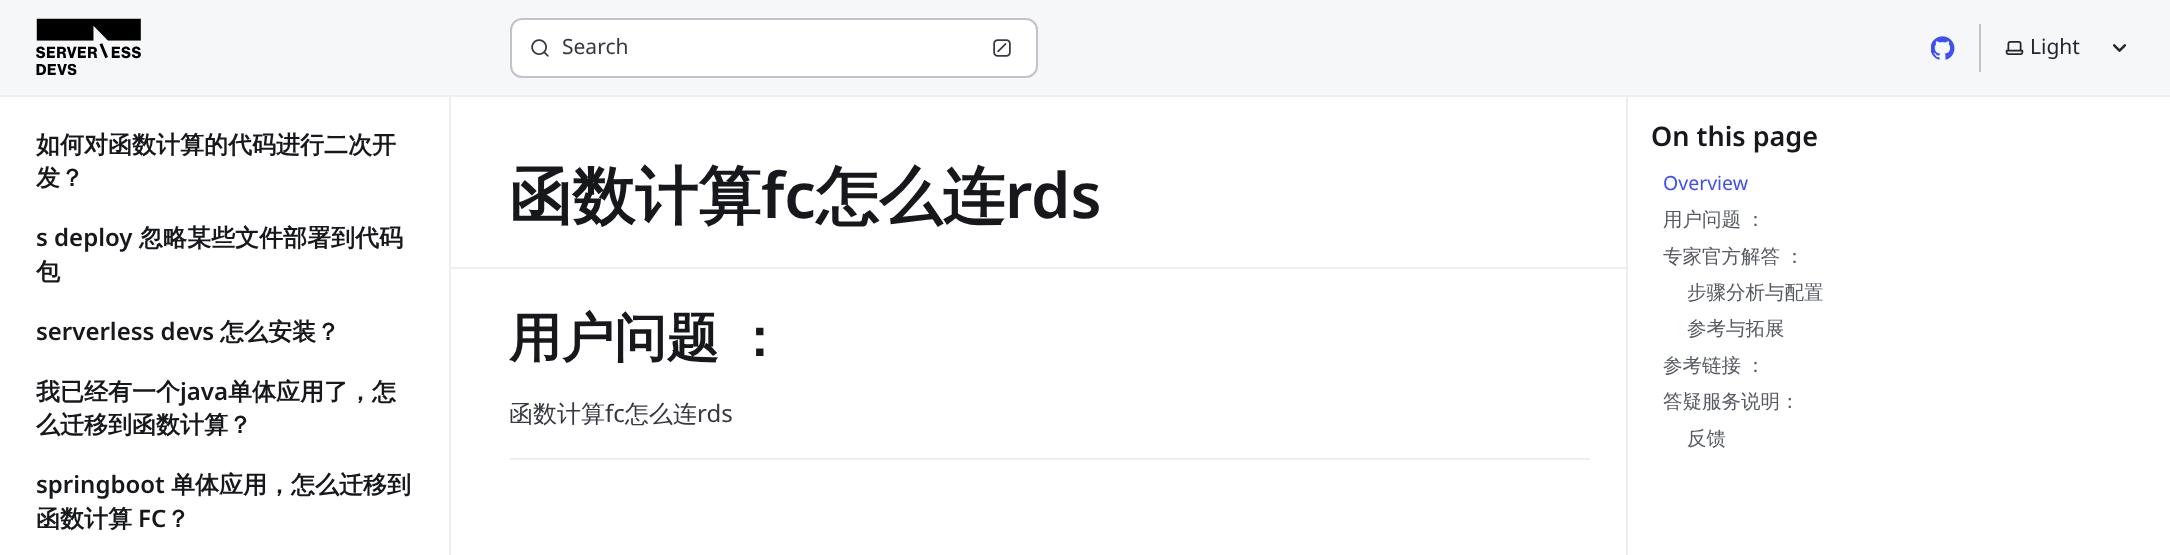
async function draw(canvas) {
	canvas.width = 2170;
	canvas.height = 555;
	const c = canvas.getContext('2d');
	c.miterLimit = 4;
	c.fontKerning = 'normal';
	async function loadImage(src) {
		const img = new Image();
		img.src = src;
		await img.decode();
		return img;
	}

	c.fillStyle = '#fff';
	c.fillRect(0, 0, 2170, 555);
	for (const [x, y, w, h, color] of [
		[0, 0, 2170, 95, '#f6f7f9'],
		[450, 267, 1176, 2, '#edeef3'],
		[449, 96, 2, 459, '#edeef3'],
		[0, 95, 2170, 2, '#edeef3'],
	]) {
		c.fillStyle = color;
		c.fillRect(x, y, w, h);
	}
	c.drawImage(await loadImage('img1.png'), 36, 18, 105, 58);
	c.fillStyle = '#fff';
	c.beginPath();
	c.roundRect(511, 19, 526, 58, 11);
	c.fill();
	c.strokeStyle = '#c1c3c8';
	c.lineWidth = 2;
	c.stroke();
	c.drawImage(await loadImage('img2.png'), 531, 39, 18, 18);
	c.font = '21px Noto Sans';
	c.fillStyle = '#353841';
	c.fillText('Search', 562, 54);
	c.drawImage(await loadImage('img3.png'), 993, 39, 18, 18);
	c.drawImage(await loadImage('img4.png'), 1931, 36, 24, 24);
	c.fillStyle = '#c1c3c8';
	c.fillRect(1979, 24, 2, 48);
	c.drawImage(await loadImage('img5.png'), 2005, 41, 19, 14);
	c.fillStyle = '#23262f';
	c.fillText('Light', 2030, 54);
	c.drawImage(await loadImage('img6.png'), 2113, 44, 14, 8);
	c.font = 'bold 24px WenQuanYi Zen Hei';
	c.fillStyle = '#17181c';
	c.fillText('如何对函数计算的代码进行二次开', 36, 153);
	c.fillText('发？', 36, 186);
	c.font = '600 24px Noto Sans';
	c.fillText('s deploy', 36, 246);
	c.font = 'bold 24px WenQuanYi Zen Hei';
	c.fillText('忽略某些文件部署到代码', 139, 246);
	c.fillText('包', 36, 280);
	c.font = '600 24px Noto Sans';
	c.fillText('serverless devs', 36, 340);
	c.font = 'bold 24px WenQuanYi Zen Hei';
	c.fillText('怎么安装？', 220, 340);
	c.fillText('我已经有一个', 36, 400);
	c.font = '600 24px Noto Sans';
	c.fillText('java', 180, 400);
	c.font = 'bold 24px WenQuanYi Zen Hei';
	c.fillText('单体应用了，怎', 228, 400);
	c.fillText('么迁移到函数计算？', 36, 433);
	c.font = '600 24px Noto Sans';
	c.fillText('springboot', 36, 493);
	c.font = 'bold 24px WenQuanYi Zen Hei';
	c.fillText('单体应用，怎么迁移到', 171, 493);
	c.fillText('函数计算', 36, 527);
	c.font = '600 24px Noto Sans';
	c.fillText('FC', 138, 527);
	c.font = 'bold 24px WenQuanYi Zen Hei';
	c.fillText('？', 166, 527);
	c.font = 'bold 63px WenQuanYi Zen Hei';
	c.fillText('函数计算', 509, 218);
	c.font = '600 63px Noto Sans';
	c.fillText('fc', 761, 218);
	c.font = 'bold 63px WenQuanYi Zen Hei';
	c.fillText('怎么连', 816, 218);
	c.font = '600 63px Noto Sans';
	c.fillText('rds', 1005, 218);
	c.wordSpacing = '-2px';
	c.font = 'bold 52.5px WenQuanYi Zen Hei';
	c.fillText('用户问题 ：', 509, 356);
	c.wordSpacing = '0px';
	c.font = '500 24px WenQuanYi Zen Hei';
	c.fillStyle = '#353841';
	c.fillText('函数计算', 509, 422);
	c.font = '24px Noto Sans';
	c.fillText('fc', 605, 422);
	c.font = '500 24px WenQuanYi Zen Hei';
	c.fillText('怎么连', 625, 422);
	c.font = '24px Noto Sans';
	c.fillText('rds', 697, 422);
	c.fillStyle = '#edeef3';
	c.fillRect(510, 458, 1080, 2);
	c.fillRect(1626, 97, 2, 458);
	c.font = '600 27px Noto Sans';
	c.fillStyle = '#17181c';
	c.fillText('On this page', 1651, 146);
	c.font = '19.5px Noto Sans';
	c.fillStyle = '#3d50f5';
	c.fillText('Overview', 1663, 190);
	c.wordSpacing = '-1px';
	c.font = '500 19.5px WenQuanYi Zen Hei';
	c.fillStyle = '#555962';
	c.fillText('用户问题 ：', 1663, 226);
	c.fillText('专家官方解答 ：', 1663, 263);
	c.wordSpacing = '0px';
	c.fillText('步骤分析与配置', 1687, 299);
	c.fillText('参考与拓展', 1687, 335);
	c.wordSpacing = '-1px';
	c.fillText('参考链接 ：', 1663, 372);
	c.wordSpacing = '0px';
	c.fillText('答疑服务说明：', 1663, 408);
	c.fillText('反馈', 1687, 445);
}

draw(document.querySelector('canvas'));
